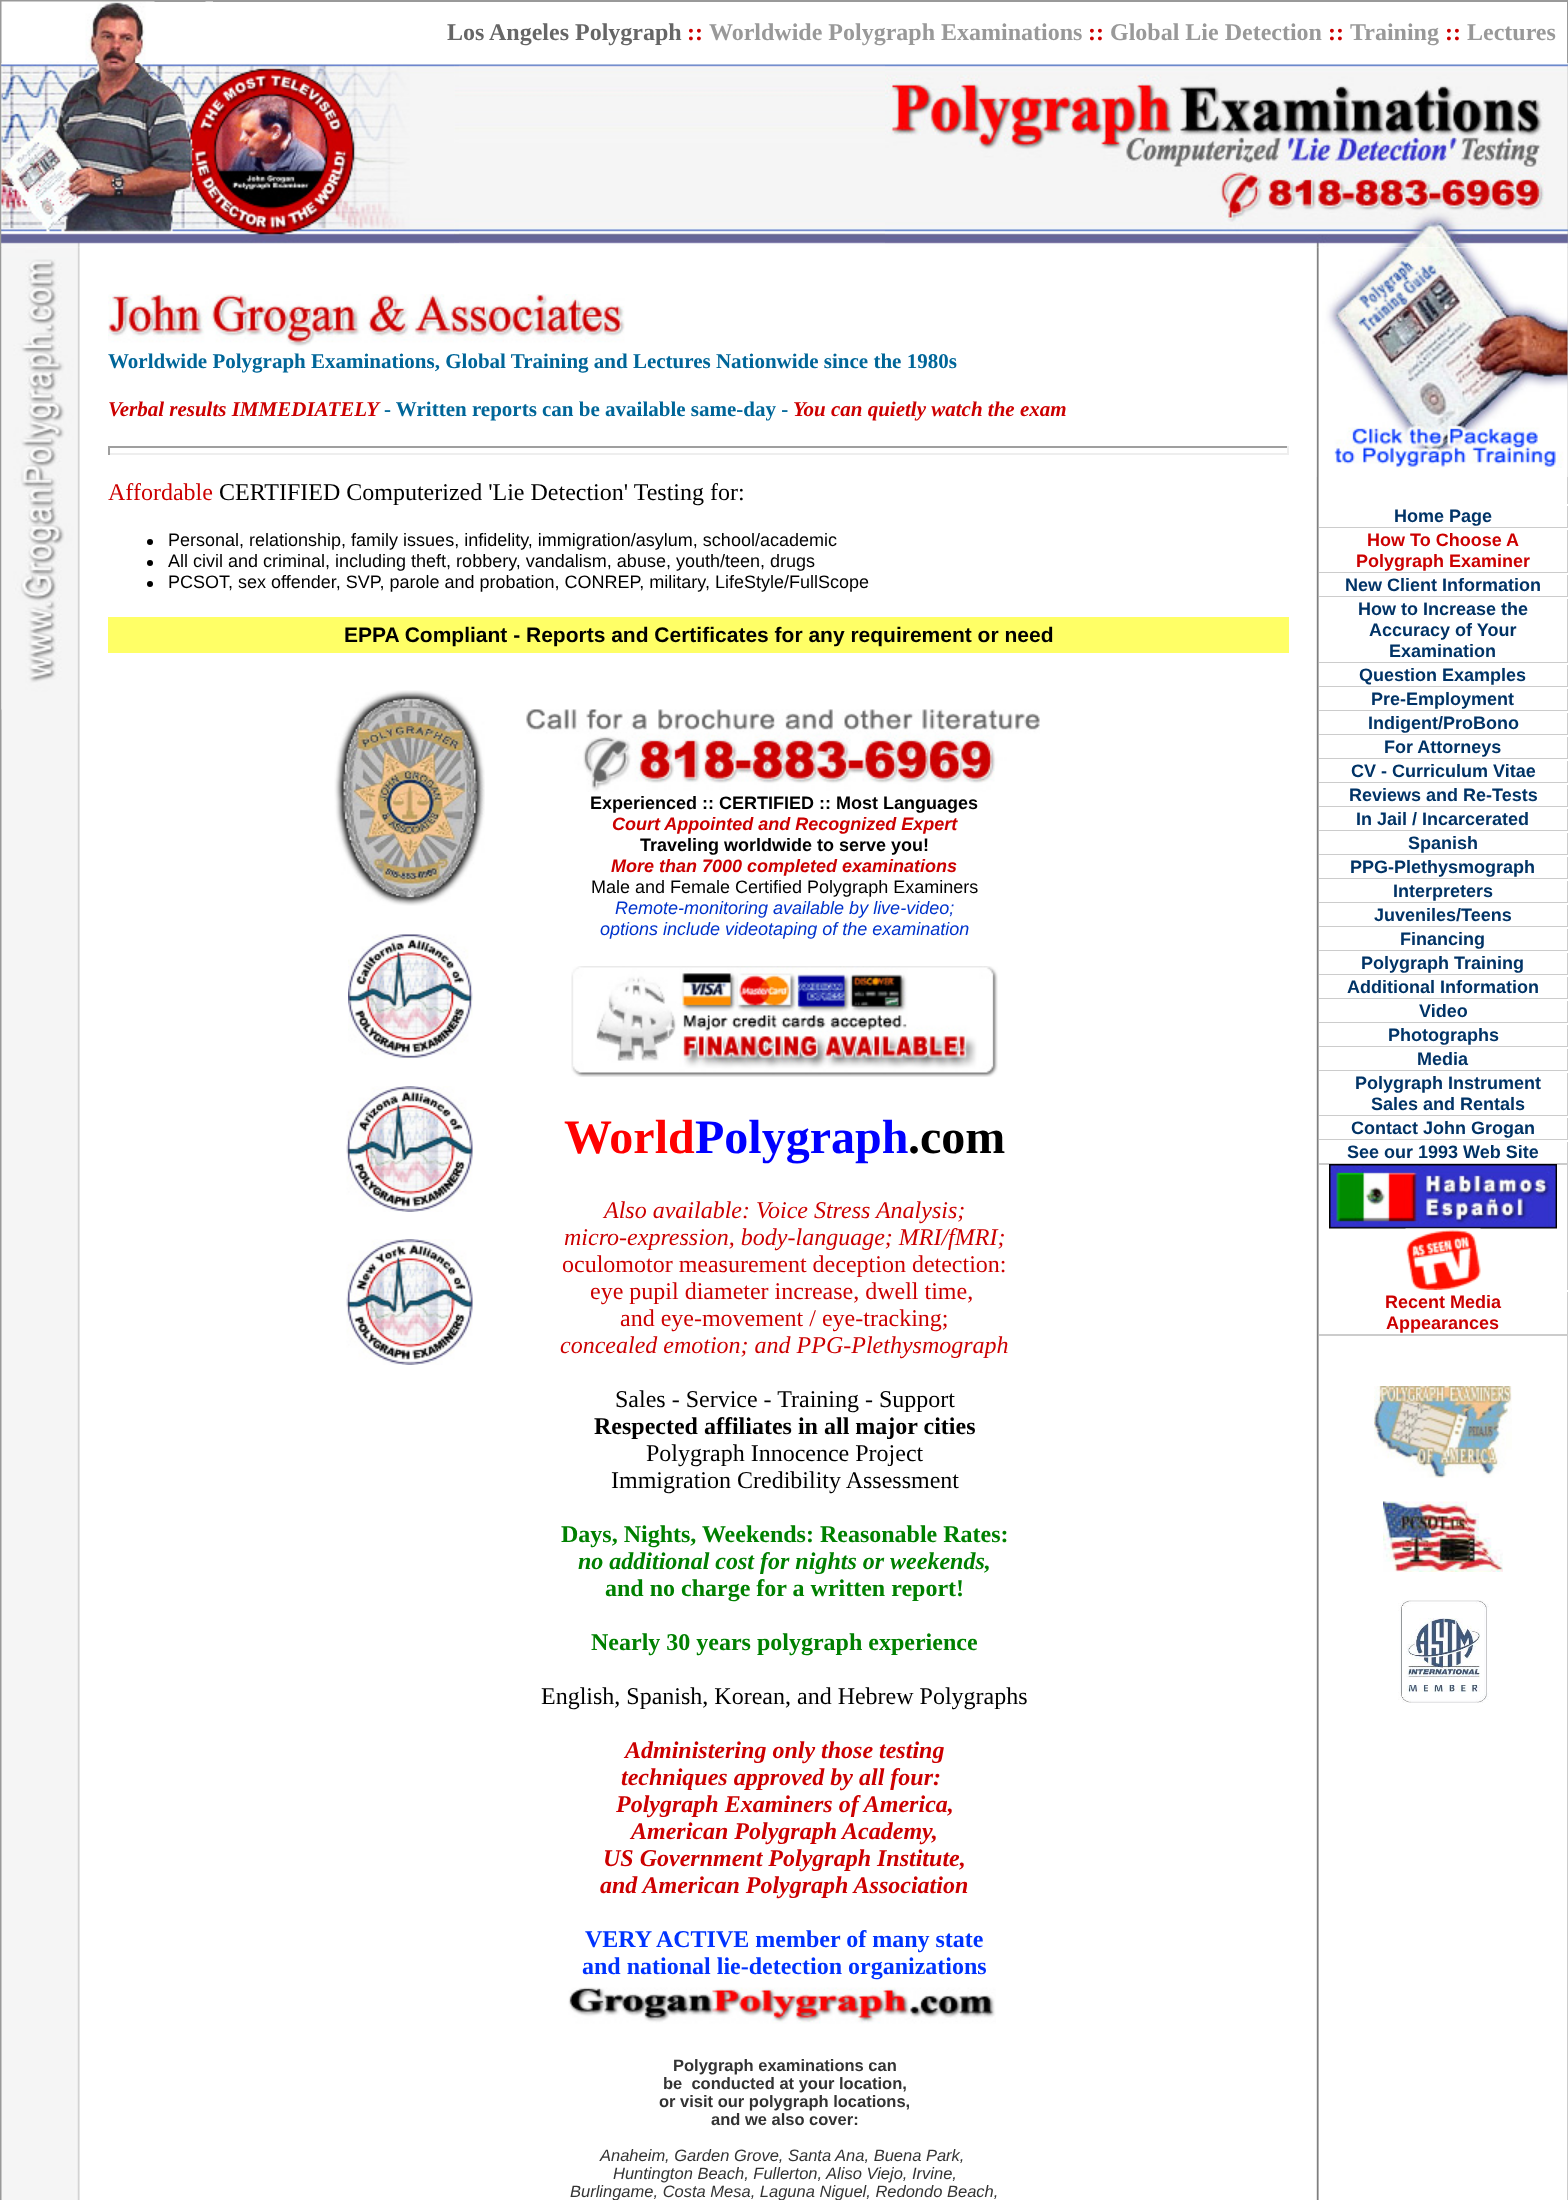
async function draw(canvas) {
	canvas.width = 1568;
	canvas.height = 2200;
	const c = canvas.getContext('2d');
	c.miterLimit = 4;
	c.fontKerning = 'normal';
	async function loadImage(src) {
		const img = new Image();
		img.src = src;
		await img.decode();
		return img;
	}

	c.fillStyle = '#fff';
	c.fillRect(0, 0, 1568, 2200);
	c.strokeStyle = '#999';
	c.lineWidth = 2;
	c.strokeRect(1, 1, 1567, 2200);
	c.drawImage(await loadImage('img1.png'), 1, 1, 154, 62);
	c.drawImage(await loadImage('img2.png'), 205, 1, 8, 1);
	c.font = 'bold 24px Liberation Serif';
	c.fillStyle = '#666';
	c.fillText('Los Angeles Polygraph', 447, 40);
	c.fillStyle = '#c00';
	c.fillText('::', 687, 40);
	c.fillStyle = '#999';
	c.fillText('Worldwide Polygraph Examinations', 709, 40);
	c.fillStyle = '#c00';
	c.fillText('::', 1088, 40);
	c.fillStyle = '#999';
	c.fillText('Global Lie Detection', 1110, 40);
	c.fillStyle = '#c00';
	c.fillText('::', 1328, 40);
	c.fillStyle = '#999';
	c.fillText('Training', 1350, 40);
	c.fillStyle = '#c00';
	c.fillText('::', 1445, 40);
	c.fillStyle = '#999';
	c.fillText('Lectures', 1467, 40);
	c.drawImage(await loadImage('img3.png'), 1, 63, 1567, 185);
	c.drawImage(await loadImage('img4.png'), 1, 63, 454, 185);
	c.drawImage(await loadImage('img5.png'), 455, 65, 4, 178);
	c.drawImage(await loadImage('img6.png'), 885, 63, 683, 110);
	c.drawImage(await loadImage('img7.png'), 885, 172, 683, 76);
	c.drawImage(await loadImage('img8.png'), 1, 247, 79, 1953);
	c.drawImage(await loadImage('img9.png'), 1, 247, 78, 457);
	c.drawImage(await loadImage('img10.png'), 1, 703, 1, 7);
	c.drawImage(await loadImage('img11.png'), 108, 294, 517, 53);
	c.font = 'bold 21px Liberation Serif';
	c.fillStyle = '#069';
	c.fillText('Worldwide Polygraph Examinations, Global Training and Lectures Nationwide since the 1980s', 108, 368);
	c.font = 'italic bold 21px Liberation Serif';
	c.fillStyle = '#c00';
	c.fillText('Verbal results IMMEDIATELY', 108, 416);
	c.font = 'bold 21px Liberation Serif';
	c.fillStyle = '#069';
	c.fillText('- Written reports can be available same-day -', 384, 416);
	c.font = 'italic bold 21px Liberation Serif';
	c.fillStyle = '#c00';
	c.fillText('You can quietly watch the exam', 793, 416);
	for (const [x, y, w, h, color] of [
		[108, 446, 1181, 2, '#9f9f9f'],
		[1287, 446, 2, 9, '#eee'],
		[108, 453, 1181, 2, '#eee'],
		[108, 446, 2, 9, '#9f9f9f'],
	]) {
		c.fillStyle = color;
		c.fillRect(x, y, w, h);
	}
	c.font = '24px Liberation Serif';
	c.fillStyle = '#c00';
	c.fillText('Affordable', 108, 500);
	c.fillStyle = '#000';
	c.fillText('CERTIFIED Computerized \'Lie Detection\' Testing for:', 219, 500);
	c.beginPath();
	c.arc(150, 542, 3, 0, 2 * Math.PI);
	c.fill();
	c.font = '18px Liberation Sans';
	c.fillText('Personal, relationship, family issues, infidelity, immigration/asylum, school/academic', 168, 546);
	c.beginPath();
	c.arc(150, 563, 3, 0, 2 * Math.PI);
	c.fill();
	c.fillText('All civil and criminal, including theft, robbery, vandalism, abuse, youth/teen, drugs', 168, 567);
	c.beginPath();
	c.arc(150, 584, 3, 0, 2 * Math.PI);
	c.fill();
	c.fillText('PCSOT, sex offender, SVP, parole and probation, CONREP, military, LifeStyle/FullScope', 168, 588);
	c.fillStyle = '#ff6';
	c.fillRect(108, 617, 1181, 36);
	c.font = 'bold 21px Liberation Sans';
	c.fillStyle = '#000';
	c.fillText('EPPA Compliant - Reports and Certificates for any requirement or need', 344, 642);
	c.drawImage(await loadImage('img12.png'), 334, 690, 151, 216);
	c.drawImage(await loadImage('img13.png'), 348, 934, 125, 125);
	c.drawImage(await loadImage('img14.png'), 346, 1086, 127, 126);
	c.drawImage(await loadImage('img15.png'), 346, 1239, 127, 126);
	c.drawImage(await loadImage('img16.png'), 526, 709, 514, 83);
	c.font = 'bold 18px Liberation Sans';
	c.fillText('Experienced :: CERTIFIED :: Most Languages', 590, 809);
	c.font = 'italic bold 18px Liberation Sans';
	c.fillStyle = '#c00';
	c.fillText('Court Appointed and Recognized Expert', 612, 830);
	c.font = 'bold 18px Liberation Sans';
	c.fillStyle = '#000';
	c.fillText('Traveling worldwide to serve you!', 640, 851);
	c.font = 'italic bold 18px Liberation Sans';
	c.fillStyle = '#c00';
	c.fillText('More than 7000 completed examinations', 611, 872);
	c.font = '18px Liberation Sans';
	c.fillStyle = '#000';
	c.fillText('Male and Female Certified Polygraph Examiners', 591, 893);
	c.font = 'italic 18px Liberation Sans';
	c.fillStyle = '#03c';
	c.fillText('Remote-monitoring available by live-video;', 615, 914);
	c.fillText('options include videotaping of the examination', 600, 935);
	c.drawImage(await loadImage('img17.png'), 571, 966, 427, 111);
	c.font = 'bold 48px Liberation Serif';
	c.fillStyle = '#f00';
	c.fillText('World', 564, 1153);
	c.fillStyle = '#00f';
	c.fillText('Polygraph', 695, 1153);
	c.fillStyle = '#000';
	c.fillText('.com', 908, 1153);
	c.font = 'italic 24px Liberation Serif';
	c.fillStyle = '#c00';
	c.fillText('Also available: Voice Stress Analysis;', 604, 1218);
	c.fillText('micro-expression, body-language; MRI/fMRI;', 564, 1245);
	c.font = '24px Liberation Serif';
	for (const [text, x, y] of [
		['oculomotor measurement deception detection:', 562, 1272],
		['eye pupil diameter increase, dwell time,', 590, 1299],
		['and eye-movement / eye-tracking;', 620, 1326],
	]) {
		c.fillText(text, x, y);
	}
	c.font = 'italic 24px Liberation Serif';
	c.fillText('concealed emotion; and PPG-Plethysmograph', 560, 1353);
	c.font = '24px Liberation Serif';
	c.fillStyle = '#000';
	c.fillText('Sales - Service - Training - Support', 615, 1407);
	c.font = 'bold 24px Liberation Serif';
	c.fillText('Respected affiliates in all major cities', 594, 1434);
	c.font = '24px Liberation Serif';
	c.fillText('Polygraph Innocence Project', 646, 1461);
	c.fillText('Immigration Credibility Assessment', 611, 1488);
	c.font = 'bold 24px Liberation Serif';
	c.fillStyle = '#008000';
	c.fillText('Days, Nights, Weekends: Reasonable Rates:', 561, 1542);
	c.font = 'italic bold 24px Liberation Serif';
	c.fillText('no additional cost for nights or weekends,', 578, 1569);
	c.font = 'bold 24px Liberation Serif';
	c.fillText('and no charge for a written report!', 605, 1596);
	c.fillText('Nearly 30 years polygraph experience', 591, 1650);
	c.font = '24px Liberation Serif';
	c.fillStyle = '#000';
	c.fillText('English, Spanish, Korean, and Hebrew Polygraphs', 541, 1704);
	c.font = 'italic bold 24px Liberation Serif';
	c.fillStyle = '#c00';
	for (const [text, x, y] of [
		['Administering only those testing', 625, 1758],
		['techniques approved by all four:', 621, 1785],
		['Polygraph Examiners of America,', 616, 1812],
		['American Polygraph Academy,', 631, 1839],
		['US Government Polygraph Institute,', 603, 1866],
		['and American Polygraph Association', 600, 1893],
	]) {
		c.fillText(text, x, y);
	}
	c.font = 'bold 24px Liberation Serif';
	c.fillStyle = '#03f';
	c.fillText('VERY ACTIVE member of many state', 585, 1947);
	c.fillText('and national lie-detection organizations', 582, 1974);
	c.drawImage(await loadImage('img18.png'), 568, 1987, 428, 37);
	c.font = 'bold 16.5px Liberation Sans';
	c.fillStyle = '#333';
	for (const [text, x, y] of [
		['Polygraph examinations can', 673, 2071],
		['be  conducted at your location,', 663, 2089],
		['or visit our polygraph locations,', 659, 2107],
		['and we also cover:', 711, 2125],
	]) {
		c.fillText(text, x, y);
	}
	c.font = 'italic 16.5px Liberation Sans';
	for (const [text, x, y] of [
		['Anaheim, Garden Grove, Santa Ana, Buena Park,', 600, 2161],
		['Huntington Beach, Fullerton, Aliso Viejo, Irvine,', 613, 2179],
		['Burlingame, Costa Mesa, Laguna Niguel, Redondo Beach,', 570, 2197],
	]) {
		c.fillText(text, x, y);
	}
	c.drawImage(await loadImage('img19.png'), 1316, 247, 252, 1953);
	c.drawImage(await loadImage('img20.png'), 1316, 247, 252, 221);
	c.drawImage(await loadImage('img21.png'), 1316, 468, 252, 9);
	c.fillStyle = '#fff';
	c.fillRect(1567, 504, 1, 2);
	c.fillStyle = '#ccc';
	c.fillRect(1319, 527, 249, 1);
	c.font = 'bold 18px Liberation Sans';
	c.fillStyle = '#036';
	c.fillText('Home Page', 1394, 522);
	c.fillStyle = '#fff';
	c.fillRect(1567, 528, 1, 2);
	c.fillStyle = '#ccc';
	c.fillRect(1319, 572, 249, 1);
	c.fillStyle = '#c00';
	c.fillText('How To Choose A', 1367, 546);
	c.fillText('Polygraph Examiner', 1356, 567);
	c.fillStyle = '#fff';
	c.fillRect(1567, 573, 1, 2);
	c.fillStyle = '#ccc';
	c.fillRect(1319, 596, 249, 1);
	c.fillStyle = '#036';
	c.fillText('New Client Information', 1345, 591);
	c.fillStyle = '#fff';
	c.fillRect(1567, 597, 1, 2);
	c.fillStyle = '#ccc';
	c.fillRect(1319, 662, 249, 1);
	c.fillStyle = '#036';
	for (const [text, x, y] of [
		['How to Increase the', 1358, 615],
		['Accuracy of Your', 1369, 636],
		['Examination', 1389, 657],
	]) {
		c.fillText(text, x, y);
	}
	c.fillStyle = '#fff';
	c.fillRect(1567, 663, 1, 2);
	c.fillStyle = '#ccc';
	c.fillRect(1319, 686, 249, 1);
	c.fillStyle = '#036';
	c.fillText('Question Examples', 1359, 681);
	c.fillStyle = '#fff';
	c.fillRect(1567, 687, 1, 2);
	c.fillStyle = '#ccc';
	c.fillRect(1319, 710, 249, 1);
	c.fillStyle = '#036';
	c.fillText('Pre-Employment', 1371, 705);
	c.fillStyle = '#fff';
	c.fillRect(1567, 711, 1, 2);
	c.fillStyle = '#ccc';
	c.fillRect(1319, 734, 249, 1);
	c.fillStyle = '#036';
	c.fillText('Indigent/ProBono', 1368, 729);
	c.fillStyle = '#fff';
	c.fillRect(1567, 735, 1, 2);
	c.fillStyle = '#ccc';
	c.fillRect(1319, 758, 249, 1);
	c.fillStyle = '#036';
	c.fillText('For Attorneys', 1384, 753);
	c.fillStyle = '#fff';
	c.fillRect(1567, 759, 1, 2);
	c.fillStyle = '#ccc';
	c.fillRect(1319, 782, 249, 1);
	c.fillStyle = '#036';
	c.fillText('CV - Curriculum Vitae', 1351, 777);
	c.fillStyle = '#fff';
	c.fillRect(1567, 783, 1, 2);
	c.fillStyle = '#ccc';
	c.fillRect(1319, 806, 249, 1);
	c.fillStyle = '#036';
	c.fillText('Reviews and Re-Tests', 1349, 801);
	c.fillStyle = '#fff';
	c.fillRect(1567, 807, 1, 2);
	c.fillStyle = '#ccc';
	c.fillRect(1319, 830, 249, 1);
	c.fillStyle = '#036';
	c.fillText('In Jail / Incarcerated', 1356, 825);
	c.fillStyle = '#fff';
	c.fillRect(1567, 831, 1, 2);
	c.fillStyle = '#ccc';
	c.fillRect(1319, 854, 249, 1);
	c.fillStyle = '#036';
	c.fillText('Spanish', 1408, 849);
	c.fillStyle = '#fff';
	c.fillRect(1567, 855, 1, 2);
	c.fillStyle = '#ccc';
	c.fillRect(1319, 878, 249, 1);
	c.fillStyle = '#036';
	c.fillText('PPG-Plethysmograph', 1350, 873);
	c.fillStyle = '#fff';
	c.fillRect(1567, 879, 1, 2);
	c.fillStyle = '#ccc';
	c.fillRect(1319, 902, 249, 1);
	c.fillStyle = '#036';
	c.fillText('Interpreters', 1393, 897);
	c.fillStyle = '#fff';
	c.fillRect(1567, 903, 1, 2);
	c.fillStyle = '#ccc';
	c.fillRect(1319, 926, 249, 1);
	c.fillStyle = '#036';
	c.fillText('Juveniles/Teens', 1374, 921);
	c.fillStyle = '#fff';
	c.fillRect(1567, 927, 1, 2);
	c.fillStyle = '#ccc';
	c.fillRect(1319, 950, 249, 1);
	c.fillStyle = '#036';
	c.fillText('Financing', 1400, 945);
	c.fillStyle = '#fff';
	c.fillRect(1567, 951, 1, 2);
	c.fillStyle = '#ccc';
	c.fillRect(1319, 974, 249, 1);
	c.fillStyle = '#036';
	c.fillText('Polygraph Training', 1361, 969);
	c.fillStyle = '#fff';
	c.fillRect(1567, 975, 1, 2);
	c.fillStyle = '#ccc';
	c.fillRect(1319, 998, 249, 1);
	c.fillStyle = '#036';
	c.fillText('Additional Information', 1347, 993);
	c.fillStyle = '#fff';
	c.fillRect(1567, 999, 1, 2);
	c.fillStyle = '#ccc';
	c.fillRect(1319, 1022, 249, 1);
	c.fillStyle = '#036';
	c.fillText('Video', 1419, 1017);
	c.fillStyle = '#fff';
	c.fillRect(1567, 1023, 1, 2);
	c.fillStyle = '#ccc';
	c.fillRect(1319, 1046, 249, 1);
	c.fillStyle = '#036';
	c.fillText('Photographs', 1388, 1041);
	c.fillStyle = '#fff';
	c.fillRect(1567, 1047, 1, 2);
	c.fillStyle = '#ccc';
	c.fillRect(1319, 1070, 249, 1);
	c.fillStyle = '#036';
	c.fillText('Media', 1417, 1065);
	c.fillStyle = '#fff';
	c.fillRect(1567, 1071, 1, 2);
	c.fillStyle = '#ccc';
	c.fillRect(1319, 1115, 249, 1);
	c.fillStyle = '#036';
	c.fillText('Polygraph Instrument', 1355, 1089);
	c.fillText('Sales and Rentals', 1371, 1110);
	c.fillStyle = '#fff';
	c.fillRect(1567, 1116, 1, 2);
	c.fillStyle = '#ccc';
	c.fillRect(1319, 1139, 249, 1);
	c.fillStyle = '#036';
	c.fillText('Contact John Grogan', 1351, 1134);
	c.fillStyle = '#fff';
	c.fillRect(1567, 1140, 1, 2);
	c.fillStyle = '#ccc';
	c.fillRect(1319, 1163, 249, 2);
	c.fillStyle = '#036';
	c.fillText('See our 1993 Web Site', 1347, 1158);
	c.drawImage(await loadImage('img22.png'), 1329, 1164, 228, 65);
	c.drawImage(await loadImage('img23.png'), 1405, 1228, 76, 62);
	c.fillStyle = '#fff';
	c.fillRect(1567, 1290, 1, 2);
	c.fillStyle = '#ccc';
	c.fillRect(1319, 1334, 249, 2);
	c.fillStyle = '#c00';
	c.fillText('Recent Media', 1385, 1308);
	c.fillText('Appearances', 1386, 1329);
	c.drawImage(await loadImage('img24.png'), 1374, 1386, 138, 92);
	c.drawImage(await loadImage('img25.png'), 1383, 1501, 120, 71);
	c.drawImage(await loadImage('img26.png'), 1398, 1600, 91, 103);
}

draw(document.querySelector('canvas'));
